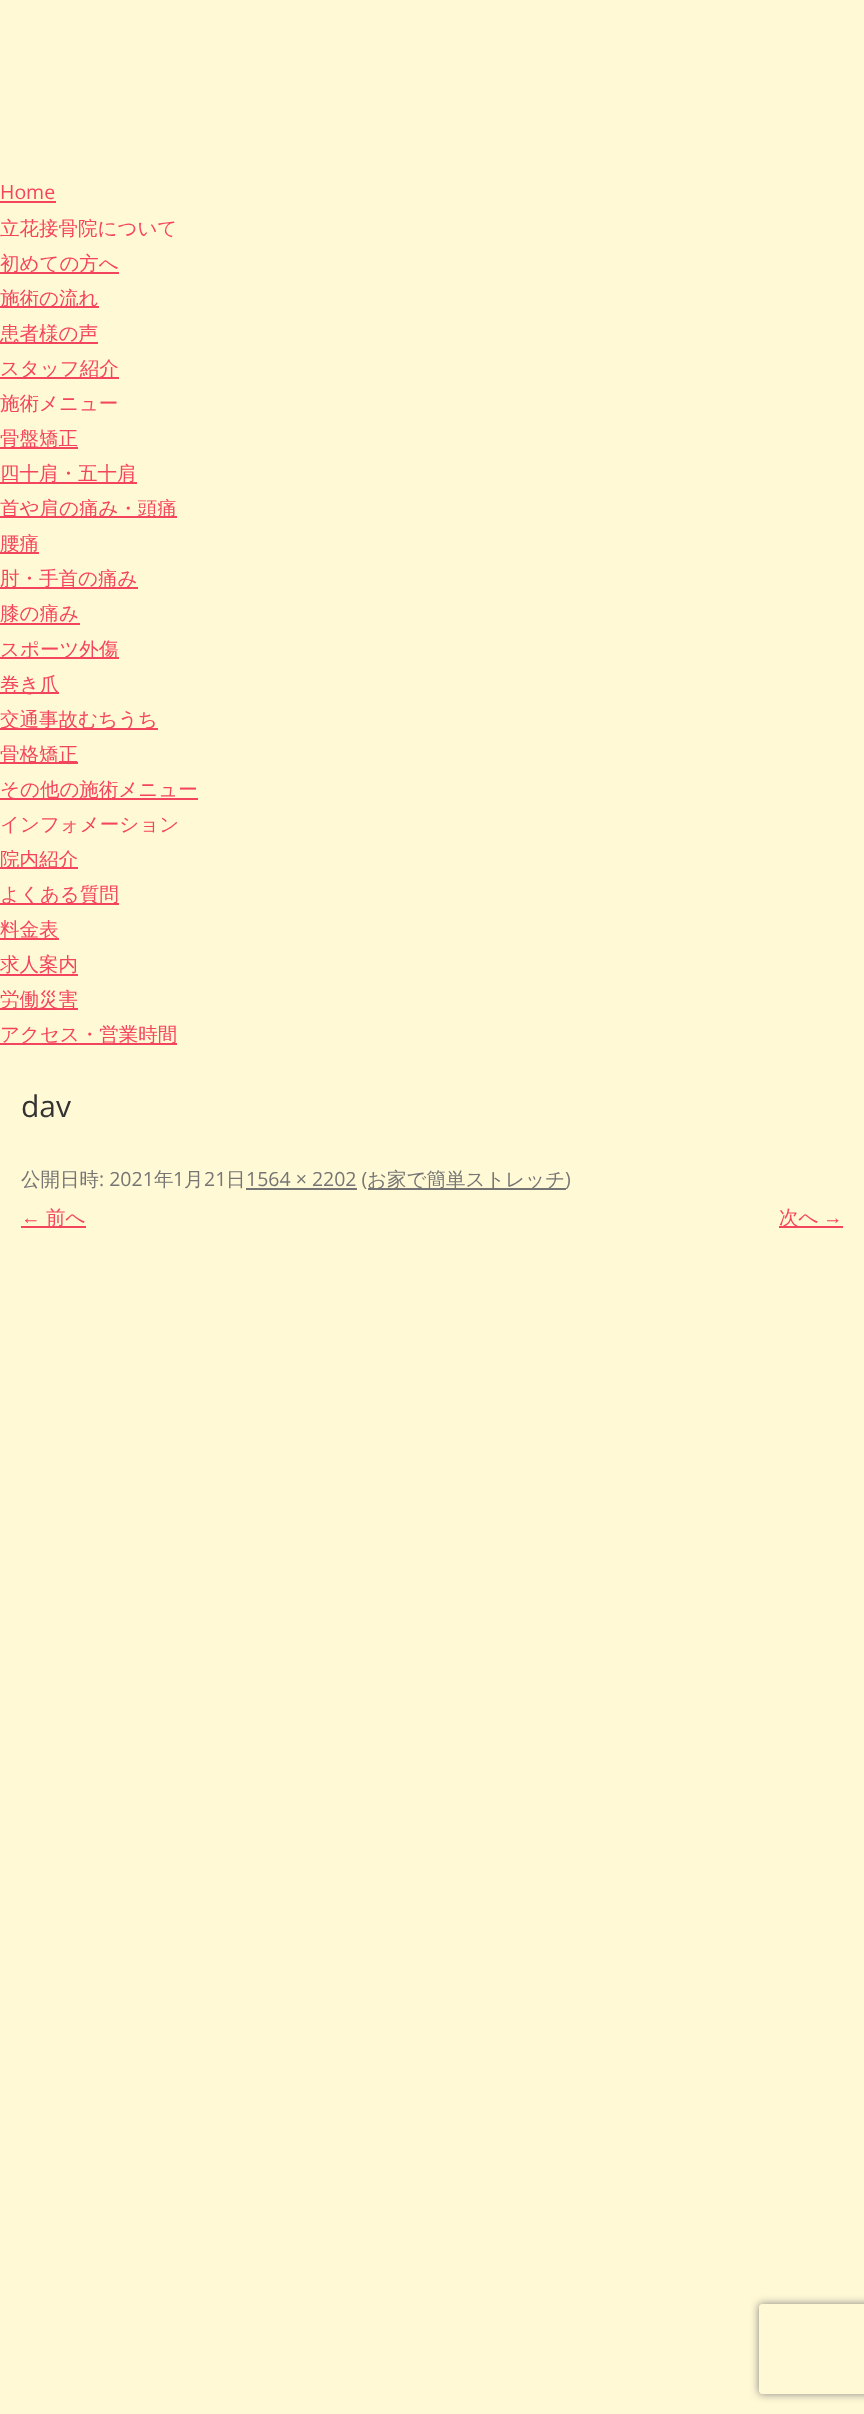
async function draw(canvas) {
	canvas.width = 864;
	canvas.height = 2414;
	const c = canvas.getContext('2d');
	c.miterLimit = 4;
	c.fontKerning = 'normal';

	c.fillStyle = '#fff9d5';
	c.fillRect(0, 0, 864, 2414);
	c.font = '19.5px Open Sans';
	c.fillStyle = '#f4455f';
	c.fillText('Home', 0, 199);
	c.fillRect(0, 201, 56, 2);
	c.font = '500 19.5px WenQuanYi Zen Hei';
	c.fillText('立花接骨院について', 0, 235);
	c.fillRect(0, 272, 119, 2);
	c.fillText('初めての方へ', 0, 270);
	c.fillRect(0, 306, 99, 2);
	c.fillText('施術の流れ', 0, 305);
	c.fillRect(0, 342, 98, 2);
	c.fillText('患者様の声', 0, 340);
	c.fillRect(0, 377, 119, 2);
	c.fillText('スタッフ紹介', 0, 375);
	c.fillText('施術メニュー', 0, 410);
	c.fillRect(0, 447, 78, 2);
	c.fillText('骨盤矯正', 0, 445);
	c.fillRect(0, 482, 137, 2);
	c.fillText('四十肩・五十肩', 0, 480);
	c.fillRect(0, 516, 177, 2);
	c.fillText('首や肩の痛み・頭痛', 0, 515);
	c.fillRect(0, 552, 39, 2);
	c.fillText('腰痛', 0, 550);
	c.fillRect(0, 587, 138, 2);
	c.fillText('肘・手首の痛み', 0, 585);
	c.fillText('膝の痛み', 0, 620);
	c.fillRect(0, 623, 80, 2);
	c.fillRect(0, 657, 119, 2);
	c.fillText('スポーツ外傷', 0, 656);
	c.fillRect(0, 692, 59, 2);
	c.fillText('巻き爪', 0, 691);
	c.fillRect(0, 728, 158, 2);
	c.fillText('交通事故むちうち', 0, 726);
	c.fillRect(0, 762, 78, 2);
	c.fillText('骨格矯正', 0, 761);
	c.fillRect(0, 798, 198, 2);
	c.fillText('その他の施術メニュー', 0, 796);
	c.fillText('インフォメーション', 0, 831);
	c.fillRect(0, 867, 78, 2);
	c.fillText('院内紹介', 0, 866);
	c.fillRect(0, 903, 119, 2);
	c.fillText('よくある質問', 0, 901);
	c.fillRect(0, 938, 59, 2);
	c.fillText('料金表', 0, 936);
	c.fillText('求人案内', 0, 971);
	c.fillRect(0, 974, 78, 2);
	c.fillRect(0, 1008, 78, 2);
	c.fillText('労働災害', 0, 1006);
	c.fillRect(0, 1043, 177, 2);
	c.fillText('アクセス・営業時間', 0, 1041);
	c.font = '30px Open Sans';
	c.fillStyle = '#333';
	c.fillText('dav', 21, 1117);
	c.font = '500 19.5px WenQuanYi Zen Hei';
	c.fillStyle = '#757575';
	c.fillText('公開日時', 21, 1186);
	c.font = '19.5px Open Sans';
	c.fillText(': 2021', 99, 1186);
	c.font = '500 19.5px WenQuanYi Zen Hei';
	c.fillText('年', 154, 1186);
	c.font = '19.5px Open Sans';
	c.fillText('1', 173, 1186);
	c.font = '500 19.5px WenQuanYi Zen Hei';
	c.fillText('月', 184, 1186);
	c.font = '19.5px Open Sans';
	c.fillText('21', 204, 1186);
	c.font = '500 19.5px WenQuanYi Zen Hei';
	c.fillText('日', 226, 1186);
	c.fillRect(246, 1188, 111, 2);
	c.font = '19.5px Open Sans';
	c.fillText('1564 × 2202 (', 246, 1186);
	c.fillRect(368, 1188, 198, 2);
	c.font = '500 19.5px WenQuanYi Zen Hei';
	c.fillText('お家で簡単ストレッチ', 367, 1186);
	c.font = '19.5px Open Sans';
	c.fillText(')', 565, 1186);
	c.font = '19.5px Liberation Sans';
	c.fillStyle = '#f4455f';
	c.fillText('←', 21, 1224);
	c.fillRect(21, 1226, 65, 2);
	c.font = '500 19.5px WenQuanYi Zen Hei';
	c.fillText('前へ', 46, 1224);
	c.fillRect(779, 1226, 64, 2);
	c.fillText('次へ', 779, 1224);
	c.font = '19.5px Liberation Sans';
	c.fillText('→', 823, 1224);
	c.save();
	c.beginPath();
	c.moveTo(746, 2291);
	c.lineTo(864, 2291);
	c.lineTo(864, 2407);
	c.lineTo(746, 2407);
	c.closePath();
	c.moveTo(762, 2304);
	c.lineTo(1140, 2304);
	c.bezierCurveTo(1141.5, 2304, 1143, 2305.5, 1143, 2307);
	c.lineTo(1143, 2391);
	c.bezierCurveTo(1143, 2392.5, 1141.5, 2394, 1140, 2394);
	c.lineTo(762, 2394);
	c.bezierCurveTo(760.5, 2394, 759, 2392.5, 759, 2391);
	c.lineTo(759, 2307);
	c.bezierCurveTo(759, 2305.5, 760.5, 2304, 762, 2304);
	c.closePath();
	c.clip('evenodd');
	c.fillStyle = '#808080';
	c.filter = 'blur(4px)';
	c.beginPath();
	c.roundRect(759, 2304, 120, 90, 3);
	c.fill();
	c.filter = 'none';
	c.restore();
}

draw(document.querySelector('canvas'));
